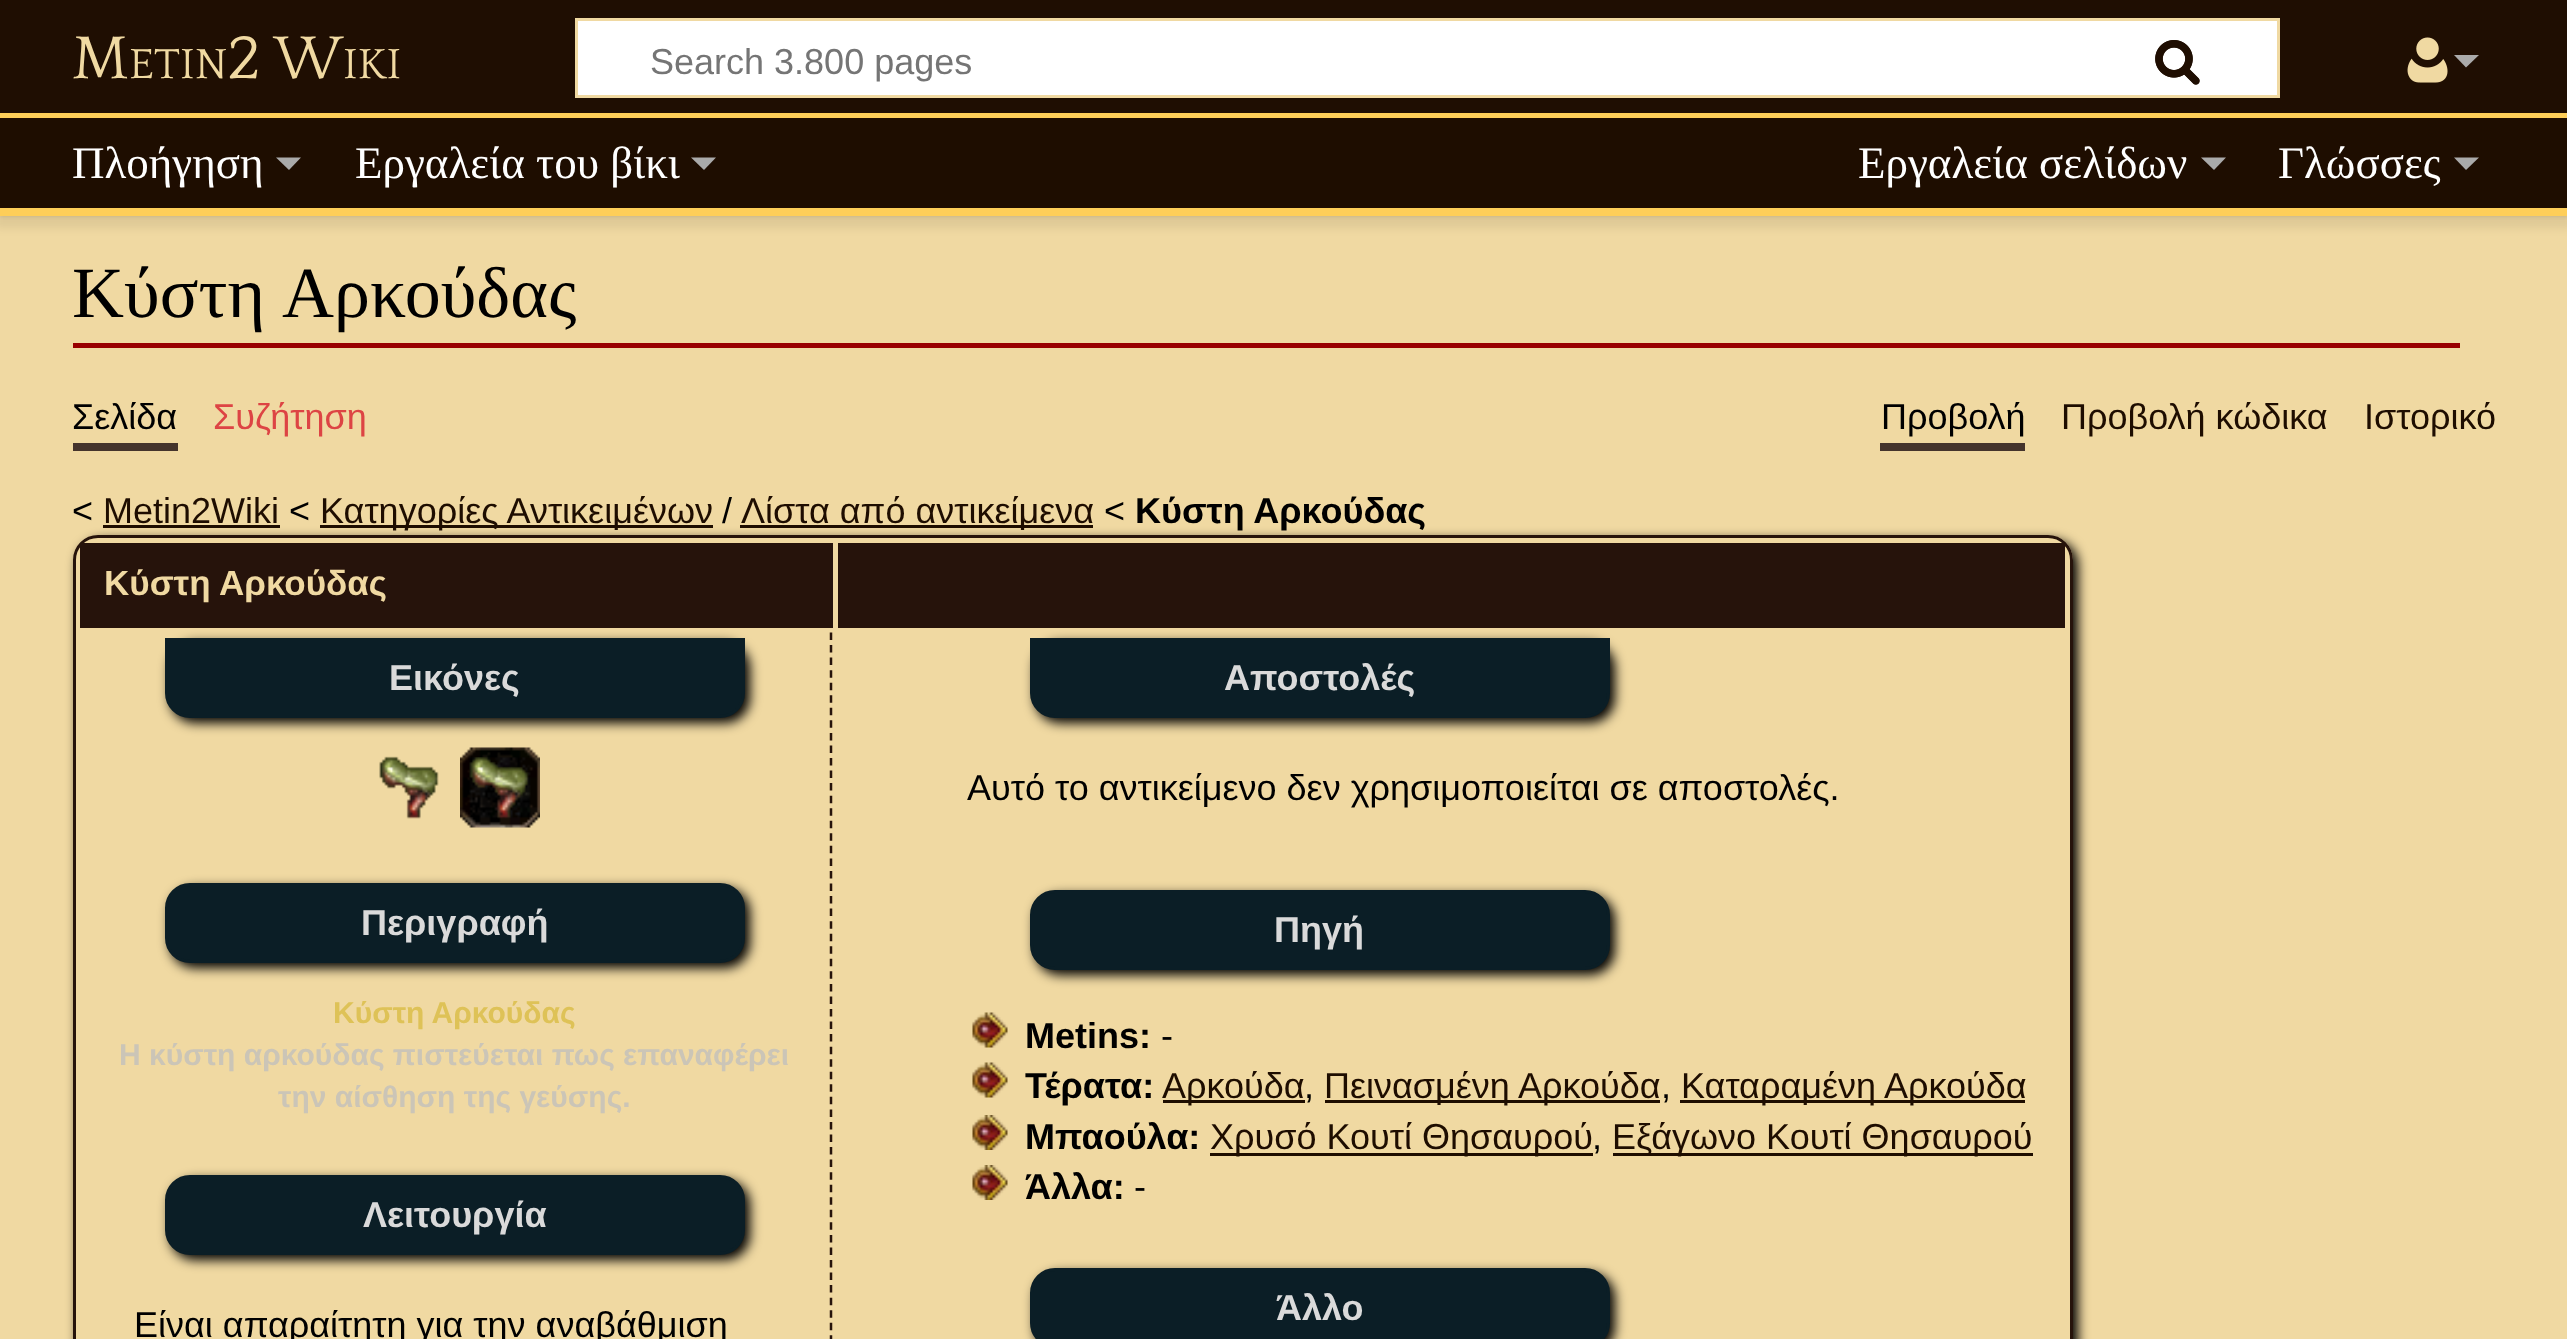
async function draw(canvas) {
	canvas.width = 2567;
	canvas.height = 1339;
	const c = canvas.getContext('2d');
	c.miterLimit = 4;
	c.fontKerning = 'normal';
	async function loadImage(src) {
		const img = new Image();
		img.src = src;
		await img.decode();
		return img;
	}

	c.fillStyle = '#f0d9a2';
	c.fillRect(0, 0, 2567, 1339);
	c.fillStyle = '#00000033';
	c.filter = 'blur(2.5px)';
	c.beginPath();
	c.rect(0, 113, 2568, 102);
	c.fill();
	c.filter = 'none';
	c.fillStyle = '#00000012';
	c.filter = 'blur(4px)';
	c.beginPath();
	c.rect(-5, 115, 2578, 113);
	c.fill();
	c.filter = 'none';
	c.fillStyle = '#1f0e02';
	c.fillRect(0, 0, 2567, 113);
	c.font = '63px Quattrocento';
	c.fillStyle = '#f0d9a2';
	c.fillText('M', 72, 78);
	c.font = '44px Quattrocento';
	c.fillText('ETIN', 129, 78);
	c.font = '63px Quattrocento';
	c.fillText('2 W', 227, 78);
	c.font = '44px Quattrocento';
	c.fillText('IKI', 343, 78);
	c.fillStyle = '#fff';
	c.beginPath();
	c.rect(576.5, 19.5, 1702, 77);
	c.fill();
	c.strokeStyle = '#f0d9a2';
	c.lineWidth = 3;
	c.stroke();
	c.drawImage(await loadImage('img1.png'), 2155, 40, 45, 45);
	c.font = '36px Liberation Sans';
	c.fillStyle = '#757575';
	c.fillText('Search 3.800 pages', 650, 74);
	c.drawImage(await loadImage('img2.png'), 2155, 40, 45, 45);
	c.drawImage(await loadImage('img3.png'), 2407, 37, 41, 46);
	c.fillStyle = '#aaa';
	c.beginPath();
	c.moveTo(2479, 55);
	c.lineTo(2466, 67.5);
	c.lineTo(2454, 55);
	c.closePath();
	c.fill();
	for (const [x, y, w, h, color] of [
		[0, 118, 2567, 90, '#1e0d00'],
		[0, 113, 2567, 5, '#fece58'],
		[0, 208, 2567, 8, '#fece58'],
	]) {
		c.fillStyle = color;
		c.fillRect(x, y, w, h);
	}
	c.font = '45px Liberation Serif';
	c.fillStyle = '#fff';
	c.fillText('Πλοήγηση', 72, 178);
	c.fillStyle = '#aaa';
	c.beginPath();
	c.moveTo(301, 157.5);
	c.lineTo(289, 170);
	c.lineTo(276, 157.5);
	c.closePath();
	c.fill();
	c.fillStyle = '#fff';
	c.fillText('Εργαλεία του βίκι', 355, 178);
	c.fillStyle = '#aaa';
	c.beginPath();
	c.moveTo(716, 157.5);
	c.lineTo(704, 170);
	c.lineTo(691, 157.5);
	c.closePath();
	c.fill();
	c.fillStyle = '#fff';
	c.fillText('Εργαλεία σελίδων', 1858, 178);
	c.fillStyle = '#aaa';
	c.beginPath();
	c.moveTo(2226, 157.5);
	c.lineTo(2214, 170);
	c.lineTo(2201, 157.5);
	c.closePath();
	c.fill();
	c.fillStyle = '#fff';
	c.fillText('Γλώσσες', 2278, 178);
	c.fillStyle = '#aaa';
	c.beginPath();
	c.moveTo(2479, 157.5);
	c.lineTo(2466, 170);
	c.lineTo(2454, 157.5);
	c.closePath();
	c.fill();
	c.fillStyle = '#900';
	c.fillRect(73, 343, 2387, 5);
	c.wordSpacing = '3px';
	c.font = '72px Liberation Serif';
	c.fillStyle = '#000';
	c.fillText('Κύστη Αρκούδας', 72, 317);
	c.fillStyle = '#45342c';
	c.fillRect(73, 443, 105, 8);
	c.wordSpacing = '0px';
	c.font = '36px Liberation Sans';
	c.fillStyle = '#000';
	c.fillText('Σελίδα', 72, 429);
	c.fillStyle = '#d44';
	c.fillText('Συζήτηση', 213, 429);
	c.fillStyle = '#45342c';
	c.fillRect(1880, 443, 145, 8);
	c.fillStyle = '#000';
	c.fillText('Προβολή', 1881, 429);
	c.fillStyle = '#1e0d00';
	c.fillText('Προβολή κώδικα', 2061, 429);
	c.fillText('Ιστορικό', 2364, 429);
	c.fillStyle = '#000';
	c.fillText('<', 72, 523);
	c.save();
	c.beginPath();
	c.moveTo(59, 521);
	c.lineTo(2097, 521);
	c.lineTo(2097, 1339);
	c.lineTo(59, 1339);
	c.closePath();
	c.moveTo(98, 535);
	c.lineTo(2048, 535);
	c.bezierCurveTo(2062, 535, 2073, 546, 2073, 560);
	c.lineTo(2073, 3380);
	c.lineTo(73, 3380);
	c.lineTo(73, 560);
	c.bezierCurveTo(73, 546, 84, 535, 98, 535);
	c.closePath();
	c.clip('evenodd');
	c.filter = 'blur(6px)';
	c.beginPath();
	c.roundRect(78, 540, 2000, 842, 25);
	c.fill();
	c.filter = 'none';
	c.restore();
	c.fillStyle = '#1e0d00';
	c.fillText('Metin2Wiki', 103, 523);
	c.fillRect(103, 525, 177, 3);
	c.fillStyle = '#000';
	c.fillText('<', 289, 523);
	c.fillStyle = '#1e0d00';
	c.fillRect(320, 525, 393, 3);
	c.fillText('Κατηγορίες Αντικειμένων', 320, 523);
	c.fillStyle = '#000';
	c.fillText('/', 722, 523);
	c.fillStyle = '#1e0d00';
	c.fillRect(740, 525, 353, 3);
	c.fillText('Λίστα από αντικείμενα', 741, 523);
	c.fillStyle = '#000';
	c.fillText('<', 1104, 523);
	c.font = 'bold 36px Liberation Sans';
	c.fillText('Κύστη Αρκούδας', 1135, 523);
	c.beginPath();
	c.moveTo(98, 536.5);
	c.lineTo(2048, 536.5);
	c.bezierCurveTo(2061, 536.5, 2071.5, 547, 2071.5, 560);
	c.lineTo(2071.5, 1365.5);
	c.lineTo(74.5, 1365.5);
	c.lineTo(74.5, 560);
	c.bezierCurveTo(74.5, 547, 85, 536.5, 98, 536.5);
	c.closePath();
	c.strokeStyle = '#26130b';
	c.stroke();
	c.fillStyle = '#26130b';
	c.fillRect(80, 543, 753, 85);
	c.font = 'bold 35px Liberation Sans';
	c.fillStyle = '#f0d9a2';
	c.fillText('Κύστη Αρκούδας', 104, 595);
	c.fillStyle = '#26130b';
	c.fillRect(838, 543, 1227, 85);
	c.beginPath();
	c.moveTo(831, 632.5);
	c.lineTo(831, 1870);
	c.lineWidth = 2.5;
	c.setLineDash([7.5, 5.05]);
	c.stroke();
	c.fillStyle = '#000';
	c.filter = 'blur(6px)';
	c.beginPath();
	c.roundRect(170, 643, 580, 80, 25);
	c.fill();
	c.filter = 'none';
	c.fillStyle = '#0b1e26';
	c.beginPath();
	c.roundRect(166.5, 639.5, 577, 77, [0, 0, 23.5, 23.5]);
	c.fill();
	c.strokeStyle = '#0b1e26';
	c.lineWidth = 3;
	c.setLineDash([]);
	c.stroke();
	c.font = 'bold 36px Liberation Sans';
	c.fillStyle = '#dadada';
	c.fillText('Εικόνες', 389, 690);
	c.drawImage(await loadImage('img4.png'), 379, 756, 60, 63);
	c.drawImage(await loadImage('img5.png'), 460, 747, 80, 81);
	c.drawImage(await loadImage('img6.png'), 469, 757, 60, 62);
	c.fillStyle = '#000';
	c.filter = 'blur(6px)';
	c.beginPath();
	c.roundRect(170, 888, 580, 80, 25);
	c.fill();
	c.filter = 'none';
	c.fillStyle = '#0b1e26';
	c.beginPath();
	c.roundRect(166.5, 884.5, 577, 77, 23.5);
	c.fill();
	c.stroke();
	c.fillStyle = '#dadada';
	c.fillText('Περιγραφή', 361, 935);
	c.font = 'bold 30px Liberation Sans';
	c.fillStyle = '#dec257';
	c.fillText('Κύστη Αρκούδας', 333, 1023);
	c.fillStyle = '#cbc5b7';
	c.fillText('Η κύστη αρκούδας πιστεύεται πως επαναφέρει', 119, 1065);
	c.fillText('την αίσθηση της γεύσης.', 278, 1107);
	c.fillStyle = '#000';
	c.filter = 'blur(6px)';
	c.beginPath();
	c.roundRect(170, 1180, 580, 80, 25);
	c.fill();
	c.filter = 'none';
	c.fillStyle = '#0b1e26';
	c.beginPath();
	c.roundRect(166.5, 1176.5, 577, 77, 23.5);
	c.fill();
	c.stroke();
	c.font = 'bold 36px Liberation Sans';
	c.fillStyle = '#dadada';
	c.fillText('Λειτουργία', 363, 1227);
	c.font = '36px Liberation Sans';
	c.fillStyle = '#000';
	c.fillText('Είναι απαραίτητη για την αναβάθμιση', 134, 1337);
	c.filter = 'blur(6px)';
	c.beginPath();
	c.roundRect(1035, 643, 580, 80, 25);
	c.fill();
	c.filter = 'none';
	c.fillStyle = '#0b1e26';
	c.beginPath();
	c.roundRect(1031.5, 639.5, 577, 77, [0, 0, 23.5, 23.5]);
	c.fill();
	c.stroke();
	c.font = 'bold 36px Liberation Sans';
	c.fillStyle = '#dadada';
	c.fillText('Αποστολές', 1224, 690);
	c.font = '36px Liberation Sans';
	c.fillStyle = '#000';
	c.fillText('Αυτό το αντικείμενο δεν χρησιμοποιείται σε αποστολές.', 967, 800);
	c.filter = 'blur(6px)';
	c.beginPath();
	c.roundRect(1035, 895, 580, 80, 25);
	c.fill();
	c.filter = 'none';
	c.fillStyle = '#0b1e26';
	c.beginPath();
	c.roundRect(1031.5, 891.5, 577, 77, 23.5);
	c.fill();
	c.stroke();
	c.font = 'bold 36px Liberation Sans';
	c.fillStyle = '#dadada';
	c.fillText('Πηγή', 1274, 942);
	c.drawImage(await loadImage('img7.png'), 972, 1012, 36, 36);
	c.fillStyle = '#000';
	c.fillText('Metins:', 1025, 1048);
	c.font = '36px Liberation Sans';
	c.fillText('-', 1161, 1048);
	c.drawImage(await loadImage('img7.png'), 972, 1062, 36, 36);
	c.font = 'bold 36px Liberation Sans';
	c.fillText('Τέρατα:', 1025, 1098);
	c.fillStyle = '#1e0d00';
	c.fillRect(1163, 1100, 142, 3);
	c.font = '36px Liberation Sans';
	c.fillText('Αρκούδα', 1162, 1098);
	c.fillStyle = '#000';
	c.fillText(',', 1304, 1098);
	c.fillStyle = '#1e0d00';
	c.fillRect(1325, 1100, 335, 3);
	c.fillText('Πεινασμένη Αρκούδα', 1324, 1098);
	c.fillStyle = '#000';
	c.fillText(',', 1661, 1098);
	c.fillStyle = '#1e0d00';
	c.fillRect(1680, 1100, 345, 3);
	c.fillText('Καταραμένη Αρκούδα', 1681, 1098);
	c.drawImage(await loadImage('img8.png'), 972, 1115, 36, 35);
	c.font = 'bold 36px Liberation Sans';
	c.fillStyle = '#000';
	c.fillText('Μπαούλα:', 1025, 1149);
	c.fillStyle = '#1e0d00';
	c.fillRect(1210, 1153, 383, 3);
	c.font = '36px Liberation Sans';
	c.fillText('Χρυσό Κουτί Θησαυρού', 1210, 1149);
	c.fillStyle = '#000';
	c.fillText(',', 1592, 1149);
	c.fillStyle = '#1e0d00';
	c.fillRect(1613, 1153, 420, 3);
	c.fillText('Εξάγωνο Κουτί Θησαυρού', 1612, 1149);
	c.drawImage(await loadImage('img9.png'), 972, 1165, 36, 35);
	c.font = 'bold 36px Liberation Sans';
	c.fillStyle = '#000';
	c.fillText('Άλλα:', 1025, 1199);
	c.font = '36px Liberation Sans';
	c.fillText('-', 1134, 1199);
	c.filter = 'blur(6px)';
	c.beginPath();
	c.roundRect(1035, 1273, 580, 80, 25);
	c.fill();
	c.filter = 'none';
	c.fillStyle = '#0b1e26';
	c.beginPath();
	c.roundRect(1031.5, 1269.5, 577, 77, 23.5);
	c.fill();
	c.stroke();
	c.font = 'bold 36px Liberation Sans';
	c.fillStyle = '#dadada';
	c.fillText('Άλλο', 1276, 1320);
}

draw(document.querySelector('canvas'));
